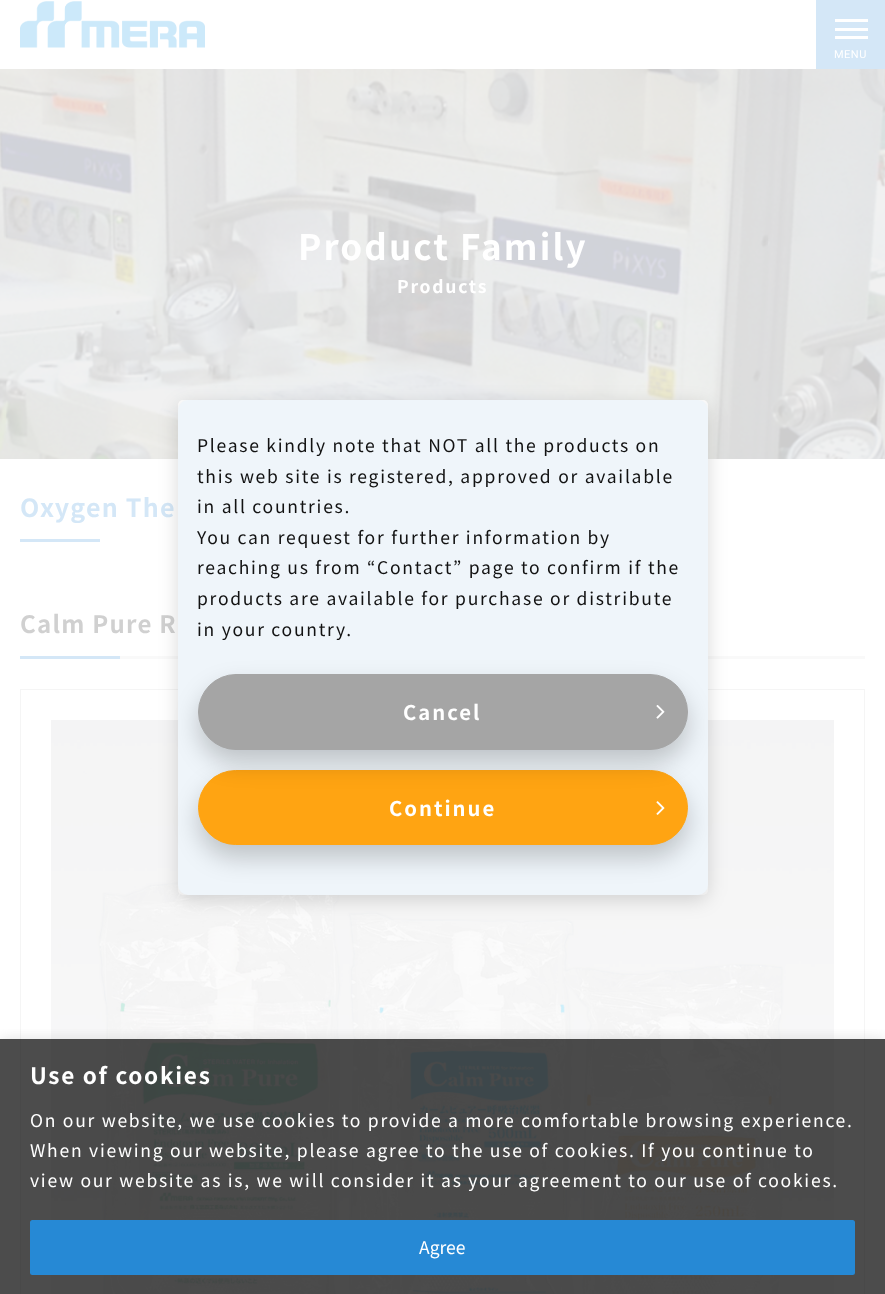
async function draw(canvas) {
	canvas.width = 885;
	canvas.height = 1294;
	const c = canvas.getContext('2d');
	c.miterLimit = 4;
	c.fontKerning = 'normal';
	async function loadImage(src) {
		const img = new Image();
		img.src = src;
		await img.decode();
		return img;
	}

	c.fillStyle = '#fff';
	c.fillRect(0, 0, 885, 1294);
	c.drawImage(await loadImage('img1.png'), 20, 1, 185, 47);
	for (const [x, y, w, h, color] of [
		[816, 0, 69, 69, '#d4e7f7'],
		[835, 19, 33, 3, '#fff'],
		[835, 28, 33, 3, '#fff'],
		[835, 36, 33, 3, '#fff'],
	]) {
		c.fillStyle = color;
		c.fillRect(x, y, w, h);
	}
	c.letterSpacing = '0.5px';
	c.font = '11px Roboto';
	c.fillText('MENU', 834, 58);
	c.drawImage(await loadImage('img2.png'), 0, 69, 885, 390);
	c.letterSpacing = '2.1px';
	c.font = 'bold 35px Noto Sans JP';
	c.fillText('Product Family', 298, 260);
	c.letterSpacing = '1.75px';
	c.font = 'bold 17.5px Noto Sans JP';
	c.fillText('Products', 397, 293);
	c.letterSpacing = '1.25px';
	c.font = 'bold 25px Noto Sans JP';
	c.fillStyle = '#d4e7f7';
	c.fillText('Oxygen The', 20, 517);
	c.fillRect(20, 539, 80, 3);
	c.fillStyle = '#f9f9f9';
	c.fillRect(120, 656, 745, 3);
	c.font = 'bold 24px Noto Sans JP';
	c.fillStyle = '#d0d0d0';
	c.fillText('Calm Pure R', 20, 633);
	c.fillStyle = '#d4e7f7';
	c.fillRect(20, 656, 100, 3);
	c.strokeStyle = '#f5f5f5';
	c.strokeRect(20.5, 689.5, 844, 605);
	c.drawImage(await loadImage('img3.png'), 51, 720, 783, 574);
	c.fillStyle = '#fff';
	c.beginPath();
	c.roundRect(178, 400, 530, 495, 5);
	c.fill();
	c.fillStyle = '#00000026';
	c.filter = 'blur(9.5px)';
	c.beginPath();
	c.roundRect(178, 405, 530, 495, 10);
	c.fill();
	c.filter = 'none';
	c.fillStyle = '#eff5fa';
	c.beginPath();
	c.roundRect(178, 400, 530, 495, 10);
	c.fill();
	c.letterSpacing = '1.75px';
	c.font = '17.5px Noto Sans JP';
	c.fillStyle = '#121212';
	for (const [text, x, y] of [
		['Please kindly note that NOT all the products on', 197, 452],
		['this web site is registered, approved or available', 197, 483],
		['in all countries.', 197, 513],
		['You can request for further information by', 197, 544],
		['reaching us from “Contact” page to confirm if the', 197, 574],
		['products are available for purchase or distribute', 197, 605],
		['in your country.', 197, 636],
	]) {
		c.fillText(text, x, y);
	}
	c.fillStyle = '#00000033';
	c.filter = 'blur(12.5px)';
	c.beginPath();
	c.roundRect(198, 783, 490, 75, 37.5);
	c.fill();
	c.filter = 'none';
	c.fillStyle = '#ffa412';
	c.beginPath();
	c.roundRect(198.5, 770.5, 489, 74, 37);
	c.fill();
	c.strokeStyle = '#ffa412';
	c.stroke();
	c.drawImage(await loadImage('img5.png'), 656, 801, 9, 14);
	c.fillStyle = '#00000033';
	c.filter = 'blur(12.5px)';
	c.beginPath();
	c.roundRect(198, 686, 490, 77, 38.5);
	c.fill();
	c.filter = 'none';
	c.fillStyle = '#a5a5a5';
	c.beginPath();
	c.roundRect(198.5, 674.5, 489, 75, 37.5);
	c.fill();
	c.strokeStyle = '#a5a5a5';
	c.stroke();
	c.letterSpacing = '2px';
	c.font = 'bold 20.25px Noto Sans JP';
	c.fillStyle = '#fff';
	c.fillText('Cancel', 403, 720);
	c.drawImage(await loadImage('img4.png'), 656, 705, 9, 14);
	c.fillText('Continue', 389, 816);
	c.save();
	c.beginPath();
	c.rect(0, 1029, 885, 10);
	c.clip();
	c.fillStyle = '#acabab4d';
	c.filter = 'blur(6px)';
	c.beginPath();
	c.rect(0, 1038, 885, 256);
	c.fill();
	c.filter = 'none';
	c.restore();
	c.fillStyle = '#000000b3';
	c.fillRect(0, 1039, 885, 255);
	c.letterSpacing = '1.75px';
	c.font = 'bold 22.5px Noto Sans JP';
	c.fillStyle = '#fff';
	c.fillText('Use of cookies', 30, 1084);
	c.font = '17.5px Noto Sans JP';
	for (const [text, x, y] of [
		['On our website, we use cookies to provide a more comfortable browsing experience.', 30, 1127],
		['When viewing our website, please agree to the use of cookies. If you continue to', 30, 1157],
		['view our website as is, we will consider it as your agreement to our use of cookies.', 30, 1187],
	]) {
		c.fillText(text, x, y);
	}
	c.fillStyle = '#2689d5';
	c.beginPath();
	c.roundRect(31.5, 1221.5, 822, 52, 1);
	c.fill();
	c.strokeStyle = '#2689d5';
	c.lineWidth = 3;
	c.stroke();
	c.letterSpacing = '0px';
	c.fillStyle = '#fff';
	c.fillText('Agree', 419, 1254);
}

draw(document.querySelector('canvas'));
